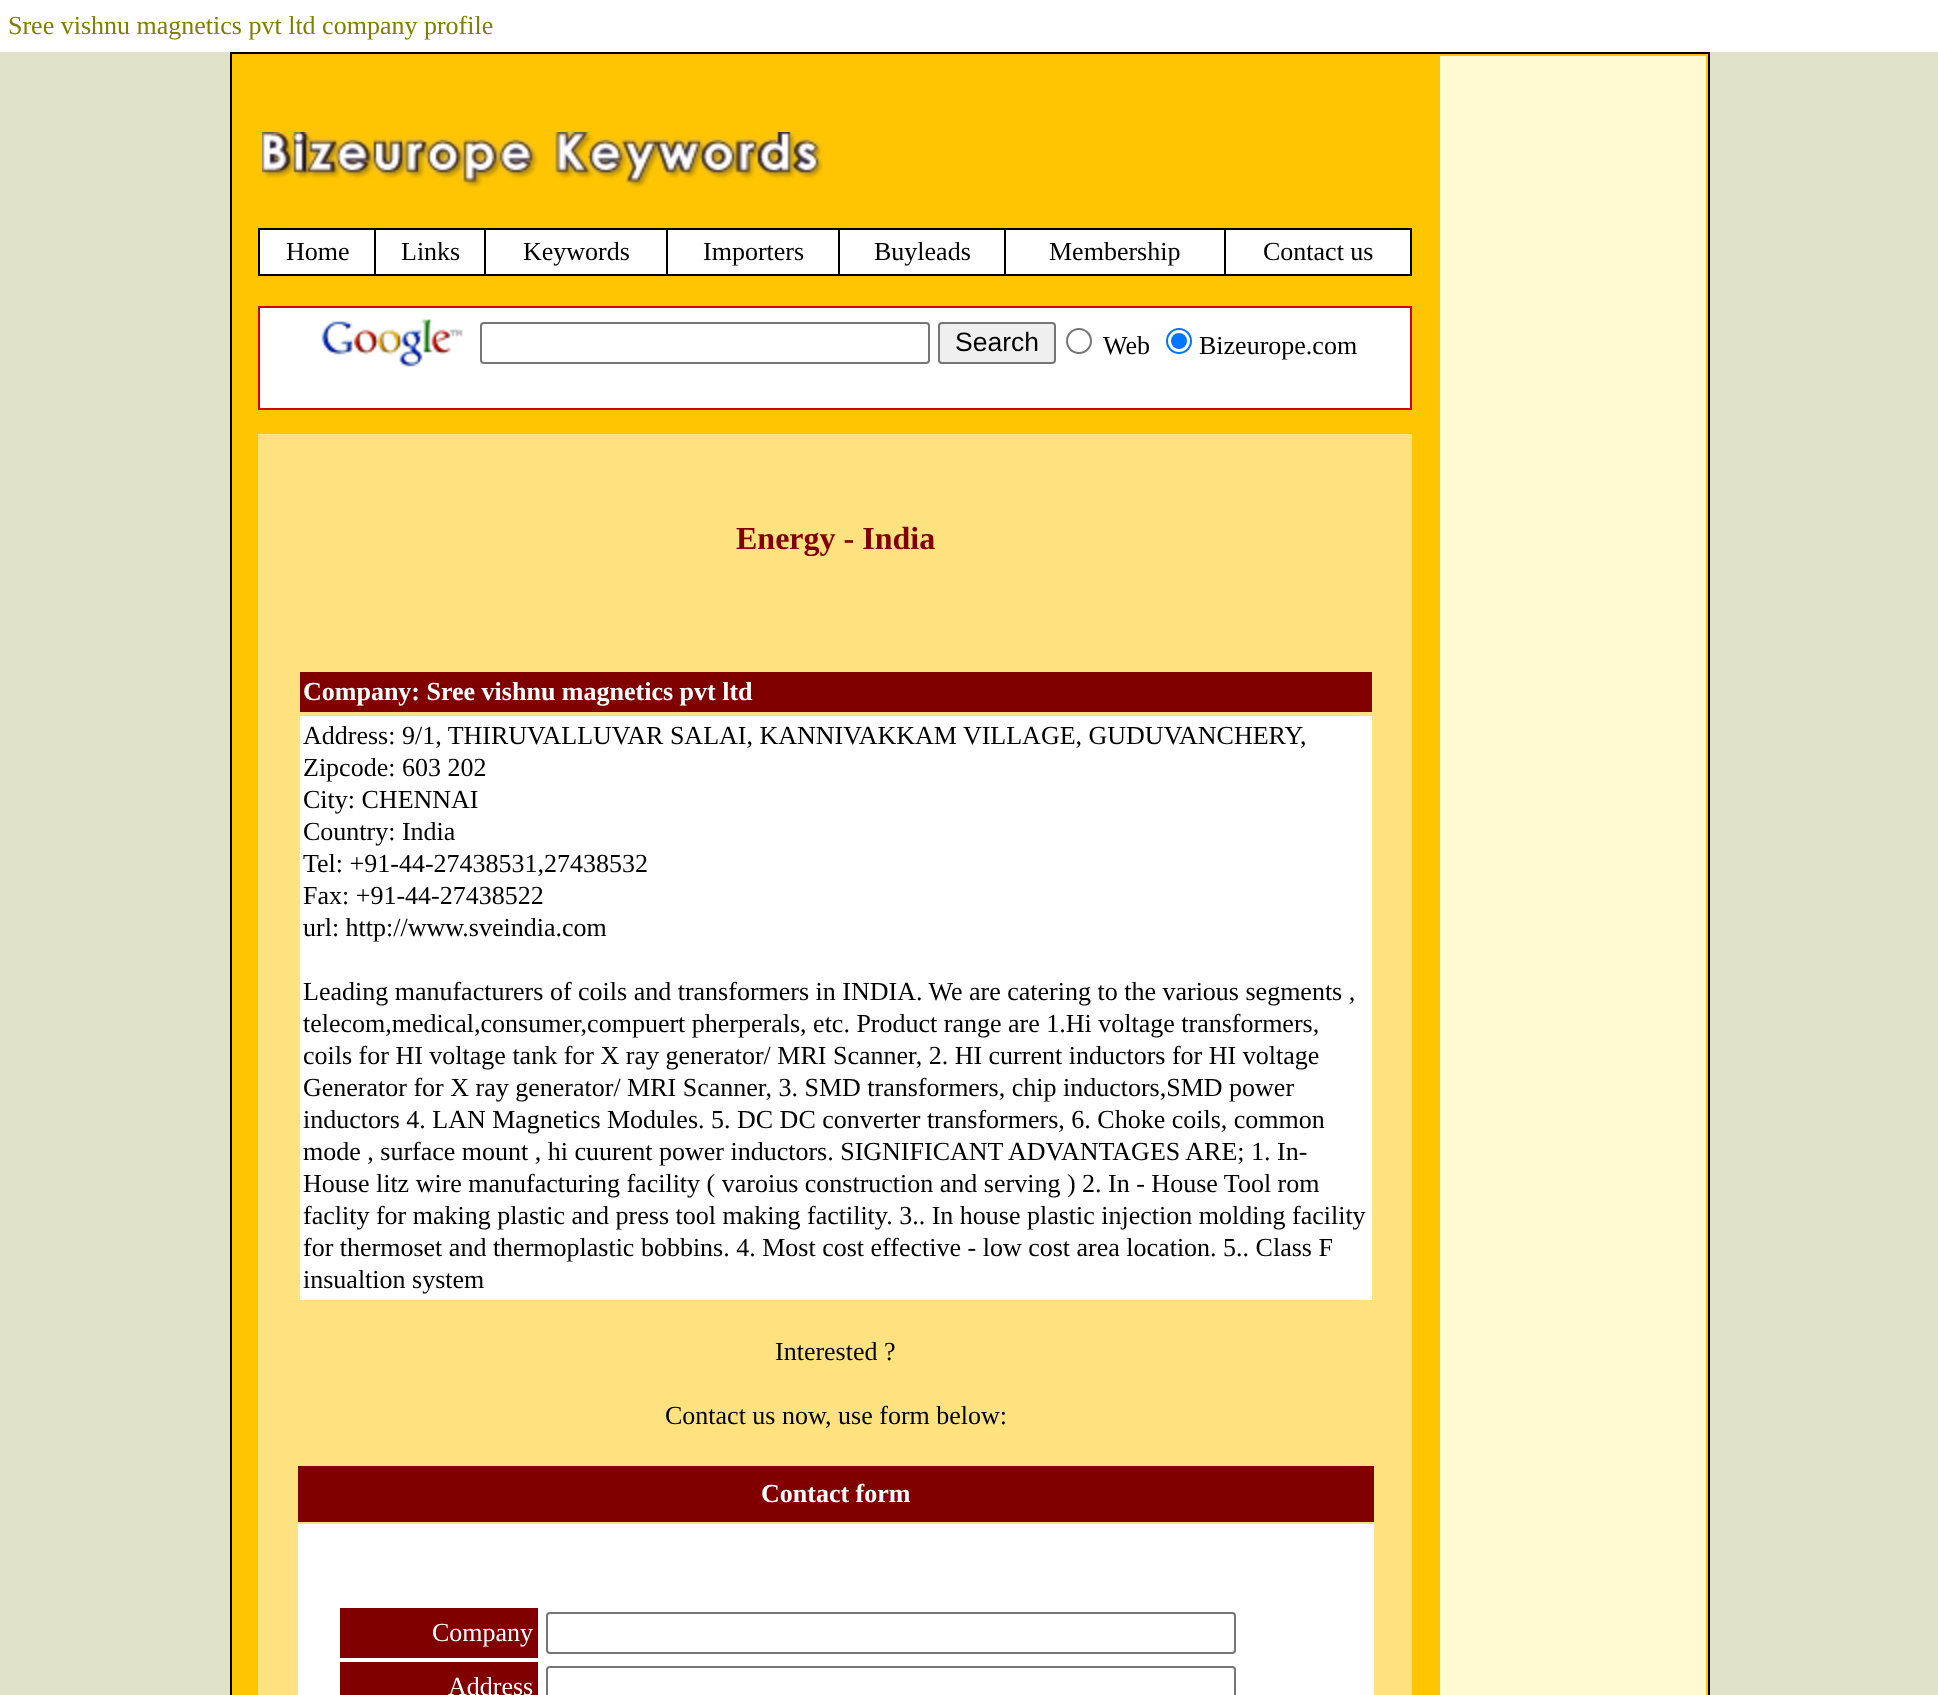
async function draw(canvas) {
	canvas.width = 1938;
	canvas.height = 1695;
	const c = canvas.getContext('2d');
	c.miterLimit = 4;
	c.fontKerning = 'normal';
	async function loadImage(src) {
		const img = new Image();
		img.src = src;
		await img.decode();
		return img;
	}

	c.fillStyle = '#dfe1c9';
	c.fillRect(0, 0, 1938, 1695);
	c.fillStyle = '#fff';
	c.fillRect(0, 0, 1938, 52);
	c.font = '26px Liberation Serif';
	c.fillStyle = '#808000';
	c.fillText('Sree vishnu magnetics pvt ltd company profile', 8, 34);
	c.fillStyle = '#000';
	c.fillRect(230, 52, 1480, 1643);
	c.fillStyle = '#ffc500';
	c.fillRect(232, 54, 1476, 1641);
	c.drawImage(await loadImage('img1.png'), 262, 132, 562, 56);
	c.fillStyle = '#000';
	c.fillRect(258, 228, 1154, 48);
	c.fillStyle = '#fff';
	c.fillRect(260, 230, 114, 44);
	c.fillStyle = '#000';
	c.fillText('Home', 286, 260);
	c.fillStyle = '#fff';
	c.fillRect(376, 230, 108, 44);
	c.fillStyle = '#000';
	c.fillText('Links', 401, 260);
	c.fillStyle = '#fff';
	c.fillRect(486, 230, 180, 44);
	c.fillStyle = '#000';
	c.fillText('Keywords', 523, 260);
	c.fillStyle = '#fff';
	c.fillRect(668, 230, 170, 44);
	c.fillStyle = '#000';
	c.fillText('Importers', 703, 260);
	c.fillStyle = '#fff';
	c.fillRect(840, 230, 164, 44);
	c.fillStyle = '#000';
	c.fillText('Buyleads', 874, 260);
	c.fillStyle = '#fff';
	c.fillRect(1006, 230, 218, 44);
	c.fillStyle = '#000';
	c.fillText('Membership', 1049, 260);
	c.fillStyle = '#fff';
	c.fillRect(1226, 230, 184, 44);
	c.fillStyle = '#000';
	c.fillText('Contact us', 1263, 260);
	c.fillStyle = '#d70000';
	c.fillRect(258, 306, 1154, 104);
	c.fillStyle = '#fff';
	c.fillRect(260, 308, 1150, 100);
	c.drawImage(await loadImage('img2.png'), 321, 319, 142, 48);
	c.beginPath();
	c.roundRect(481, 323, 448, 40, 3);
	c.strokeStyle = '#767676';
	c.lineWidth = 2;
	c.stroke();
	c.fillStyle = '#efefef';
	c.beginPath();
	c.roundRect(939, 323, 116, 40, 3);
	c.fill();
	c.stroke();
	c.font = '26.5px Liberation Sans';
	c.fillStyle = '#000';
	c.fillText('Search', 955, 351);
	c.beginPath();
	c.arc(1079, 341, 12, 0, 2 * Math.PI);
	c.stroke();
	c.font = '26px Liberation Serif';
	c.fillText('Web', 1103, 354);
	c.beginPath();
	c.arc(1179, 341, 12, 0, 2 * Math.PI);
	c.strokeStyle = '#0075ff';
	c.stroke();
	c.fillStyle = '#0075ff';
	c.beginPath();
	c.arc(1179, 341, 8, 0, 2 * Math.PI);
	c.fill();
	c.fillStyle = '#000';
	c.fillText('Bizeurope.com', 1199, 354);
	c.fillStyle = '#ffe280';
	c.fillRect(258, 434, 1154, 1261);
	c.font = 'bold 32px Liberation Serif';
	c.fillStyle = '#800000';
	c.fillText('Energy - India', 736, 549);
	c.fillRect(300, 672, 1072, 40);
	c.font = 'bold 26px Liberation Serif';
	c.fillStyle = '#fff';
	c.fillText('Company: Sree vishnu magnetics pvt ltd', 303, 700);
	c.fillRect(300, 716, 1072, 584);
	c.font = '26px Liberation Serif';
	c.fillStyle = '#000';
	for (const [text, x, y] of [
		['Address: 9/1, THIRUVALLUVAR SALAI, KANNIVAKKAM VILLAGE, GUDUVANCHERY,', 303, 744],
		['Zipcode: 603 202', 303, 776],
		['City: CHENNAI', 303, 808],
		['Country: India', 303, 840],
		['Tel: +91-44-27438531,27438532', 303, 872],
		['Fax: +91-44-27438522', 303, 904],
		['url: http://www.sveindia.com', 303, 936],
		['Leading manufacturers of coils and transformers in INDIA. We are catering to the various segments ,', 303, 1000],
		['telecom,medical,consumer,compuert pherperals, etc. Product range are 1.Hi voltage transformers,', 303, 1032],
		['coils for HI voltage tank for X ray generator/ MRI Scanner, 2. HI current inductors for HI voltage', 303, 1064],
		['Generator for X ray generator/ MRI Scanner, 3. SMD transformers, chip inductors,SMD power', 303, 1096],
		['inductors 4. LAN Magnetics Modules. 5. DC DC converter transformers, 6. Choke coils, common', 303, 1128],
		['mode , surface mount , hi cuurent power inductors. SIGNIFICANT ADVANTAGES ARE; 1. In-', 303, 1160],
		['House litz wire manufacturing facility ( varoius construction and serving ) 2. In - House Tool rom', 303, 1192],
		['faclity for making plastic and press tool making factility. 3.. In house plastic injection molding facility', 303, 1224],
		['for thermoset and thermoplastic bobbins. 4. Most cost effective - low cost area location. 5.. Class F', 303, 1256],
		['insualtion system', 303, 1288],
		['Interested ?', 775, 1360],
		['Contact us now, use form below:', 665, 1424],
	]) {
		c.fillText(text, x, y);
	}
	c.fillStyle = '#800000';
	c.fillRect(298, 1466, 1076, 56);
	c.font = 'bold 26px Liberation Serif';
	c.fillStyle = '#fff';
	c.fillText('Contact form', 761, 1502);
	c.fillRect(298, 1524, 1076, 171);
	c.fillStyle = '#800000';
	c.fillRect(340, 1608, 198, 50);
	c.font = '26px Liberation Serif';
	c.fillStyle = '#fff';
	c.fillText('Company', 432, 1641);
	c.beginPath();
	c.roundRect(547, 1613, 688, 40, 3);
	c.strokeStyle = '#767676';
	c.stroke();
	c.fillStyle = '#800000';
	c.fillRect(340, 1662, 198, 33);
	c.fillStyle = '#fff';
	c.fillText('Address', 448, 1695);
	c.beginPath();
	c.roundRect(547, 1667, 688, 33, 3);
	c.stroke();
	c.fillStyle = '#fffad2';
	c.fillRect(1440, 56, 266, 1639);
}

draw(document.querySelector('canvas'));
